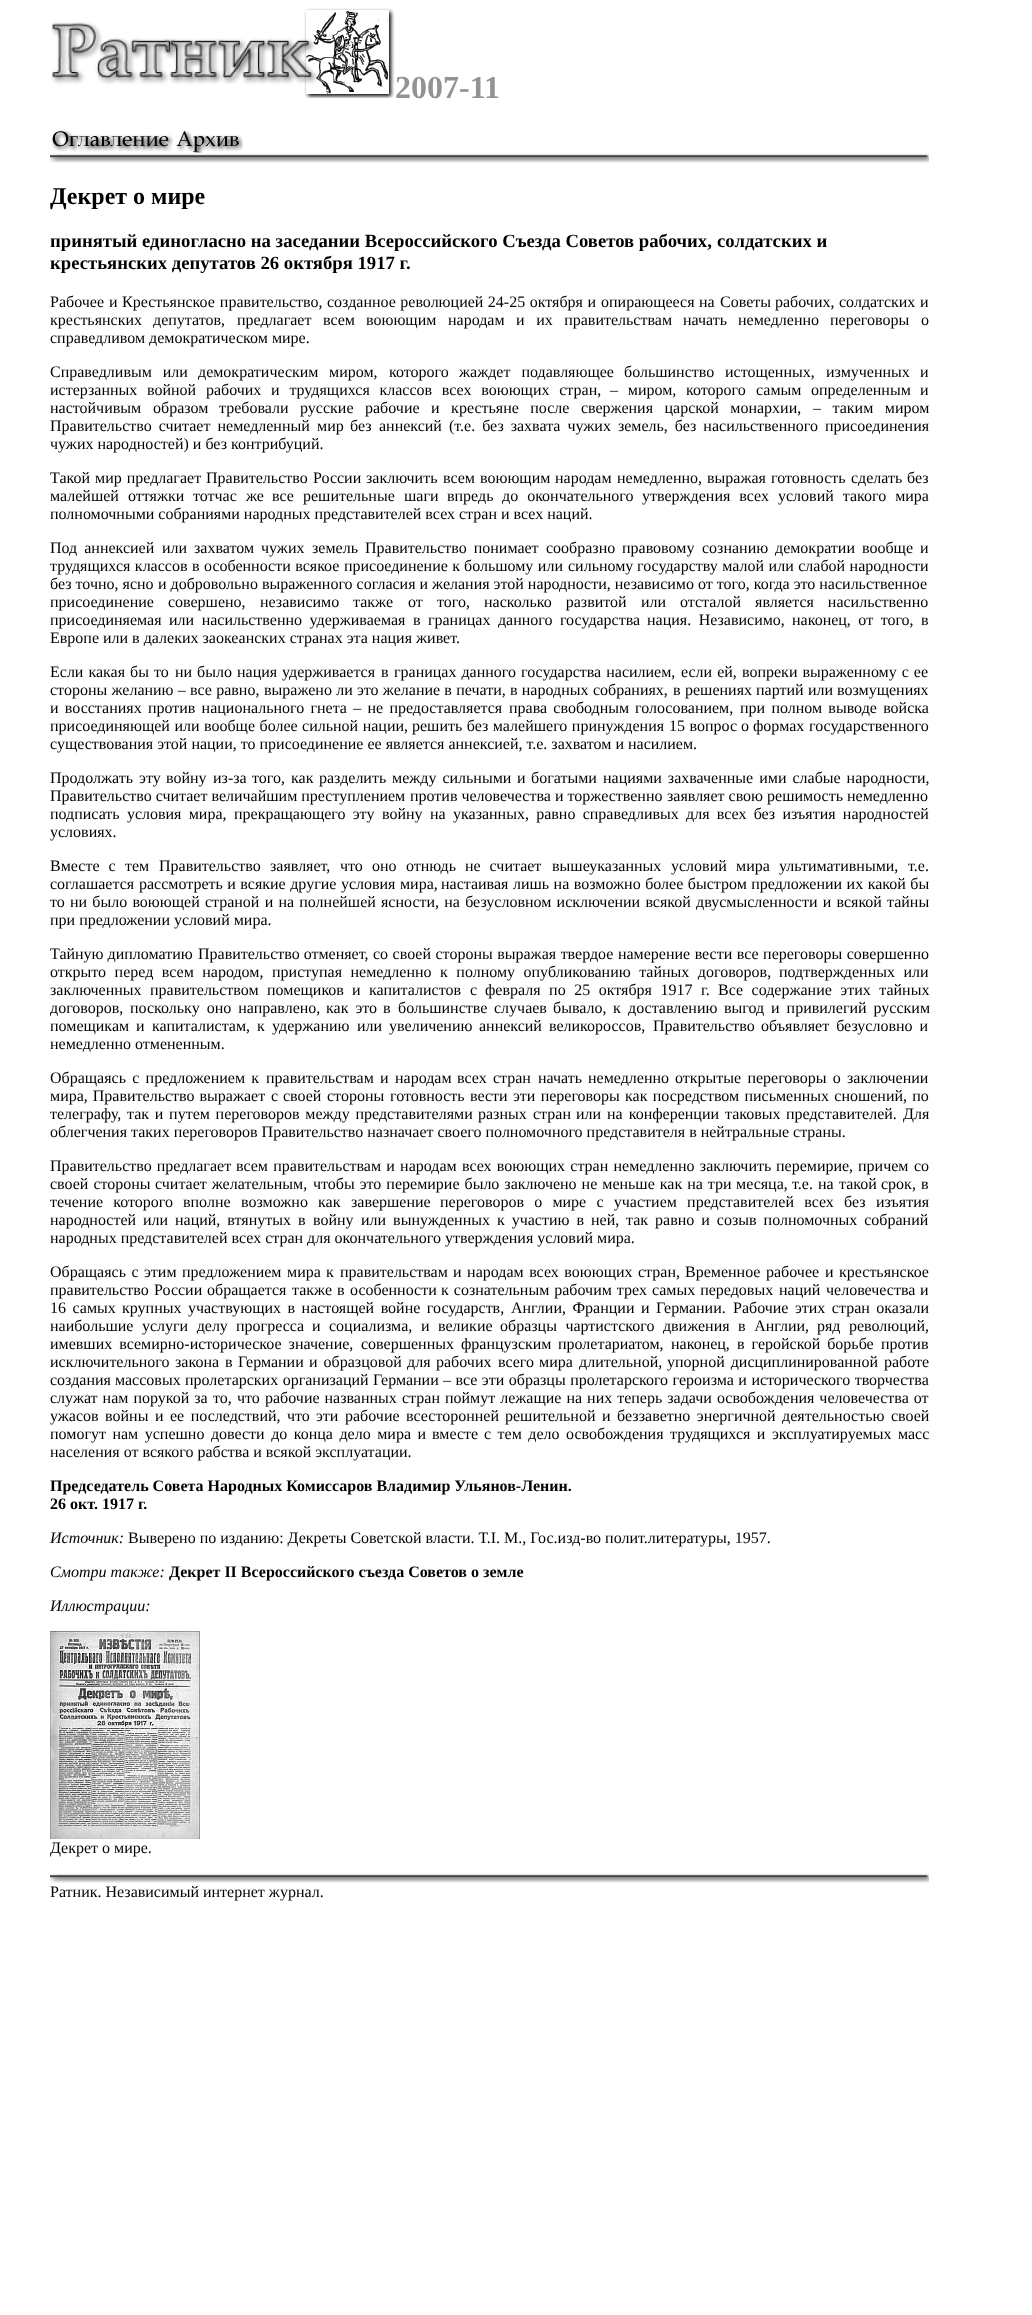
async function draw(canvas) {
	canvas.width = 1032;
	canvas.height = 2315;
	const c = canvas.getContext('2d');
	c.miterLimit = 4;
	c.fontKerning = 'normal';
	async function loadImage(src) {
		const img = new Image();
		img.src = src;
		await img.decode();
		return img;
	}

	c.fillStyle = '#fff';
	c.fillRect(0, 0, 1032, 2315);
	c.drawImage(await loadImage('img1.png'), 51, 8, 344, 90);
	c.font = 'bold 32px Liberation Serif';
	c.fillStyle = '#939393';
	c.fillText('2007-11', 395, 98);
	c.drawImage(await loadImage('img2.png'), 51, 129, 122, 23);
	c.drawImage(await loadImage('img3.png'), 176, 130, 67, 23);
	c.drawImage(await loadImage('img4.png'), 50, 153, 879, 10);
	c.font = 'bold 24px Liberation Serif';
	c.fillStyle = '#000';
	c.fillText('Декрет о мире', 50, 204);
	c.font = 'bold 18.7px Liberation Serif';
	for (const [text, x, y] of [
		['принятый единогласно на заседании Всероссийского Съезда Советов рабочих,', 50, 247],
		['солдатских и', 717, 247],
		['крестьянских депутатов 26 октября 1917 г.', 50, 269],
	]) {
		c.fillText(text, x, y);
	}
	c.wordSpacing = '1px';
	c.font = '16px Liberation Serif';
	c.fillText('Рабочее и', 50, 307);
	c.fillText('Крестьянское правительство,', 122, 307);
	c.wordSpacing = '0.5px';
	c.fillText('созданное революцией 24-25 октября и', 327, 307);
	c.wordSpacing = '0px';
	for (const [text, x, y] of [
		['опирающееся', 601, 307],
		['на', 699, 307],
		['Советы', 720, 307],
		['рабочих,', 775, 307],
		['солдатских', 839, 307],
		['и', 920, 307],
		['крестьянских', 50, 325],
		['депутатов,', 153, 325],
		['предлагает', 237, 325],
		['всем', 323, 325],
		['воюющим', 366, 325],
	]) {
		c.fillText(text, x, y);
	}
	c.wordSpacing = '7.5px';
	c.fillText('народам и их правительствам', 448, 325);
	c.wordSpacing = '0px';
	for (const [text, x, y] of [
		['начать', 683, 325],
		['немедленно', 738, 325],
		['переговоры', 830, 325],
		['о', 921, 325],
		['справедливом демократическом мире.', 50, 343],
	]) {
		c.fillText(text, x, y);
	}
	c.wordSpacing = '7px';
	c.fillText('Справедливым или', 50, 377);
	c.wordSpacing = '0px';
	for (const [text, x, y] of [
		['демократическим', 198, 377],
		['миром,', 329, 377],
		['которого', 389, 377],
	]) {
		c.fillText(text, x, y);
	}
	c.wordSpacing = '7px';
	c.fillText('жаждет подавляющее', 459, 377);
	c.wordSpacing = '0px';
	for (const [text, x, y] of [
		['большинство', 624, 377],
		['истощенных,', 725, 377],
		['измученных', 826, 377],
		['и', 920, 377],
	]) {
		c.fillText(text, x, y);
	}
	c.wordSpacing = '5.75px';
	c.fillText('истерзанных войной рабочих и трудящихся классов всех воюющих стран,', 50, 395);
	c.fillText('– миром, которого', 610, 395);
	c.wordSpacing = '0px';
	for (const [text, x, y] of [
		['самым', 756, 395],
		['определенным', 811, 395],
		['и', 920, 395],
		['настойчивым', 50, 413],
		['образом', 153, 413],
	]) {
		c.fillText(text, x, y);
	}
	c.wordSpacing = '7.5px';
	for (const [text, x, y] of [
		['требовали русские', 219, 413],
		['рабочие и крестьяне после свержения царской монархии,', 365, 413],
		['– таким миром', 813, 413],
	]) {
		c.fillText(text, x, y);
	}
	c.wordSpacing = '3px';
	c.fillText('Правительство считает немедленный', 50, 431);
	c.wordSpacing = '0px';
	c.fillText('мир', 317, 431);
	c.fillText('без', 350, 431);
	c.wordSpacing = '3px';
	c.fillText('аннексий (т.е. без захвата чужих земель, без насильственного присоединения', 379, 431);
	c.wordSpacing = '0px';
	c.fillText('чужих народностей) и без контрибуций.', 50, 449);
	c.wordSpacing = '1px';
	c.fillText('Такой мир предлагает', 50, 483);
	c.wordSpacing = '0px';
	for (const [text, x, y] of [
		['Правительство', 206, 483],
		['России', 313, 483],
		['заключить', 366, 483],
	]) {
		c.fillText(text, x, y);
	}
	c.wordSpacing = '1px';
	c.fillText('всем воюющим', 443, 483);
	c.wordSpacing = '0px';
	for (const [text, x, y] of [
		['народам', 555, 483],
		['немедленно,', 617, 483],
		['выражая', 707, 483],
		['готовность', 771, 483],
		['сделать', 851, 483],
		['без', 907, 483],
		['малейшей', 50, 501],
		['оттяжки', 128, 501],
		['тотчас', 193, 501],
		['же', 246, 501],
		['все', 272, 501],
		['решительные', 303, 501],
		['шаги', 404, 501],
		['впредь', 447, 501],
	]) {
		c.fillText(text, x, y);
	}
	c.wordSpacing = '5px';
	c.fillText('до окончательного', 502, 501);
	c.fillText('утверждения всех условий такого мира', 642, 501);
	c.wordSpacing = '0px';
	c.fillText('полномочными собраниями народных представителей всех стран и всех наций.', 50, 519);
	c.wordSpacing = '3px';
	c.fillText('Под аннексией', 50, 553);
	c.wordSpacing = '0px';
	for (const [text, x, y] of [
		['или', 162, 553],
		['захватом', 194, 553],
		['чужих', 261, 553],
		['земель', 312, 553],
	]) {
		c.fillText(text, x, y);
	}
	c.wordSpacing = '3px';
	c.fillText('Правительство понимает', 365, 553);
	c.wordSpacing = '0px';
	for (const [text, x, y] of [
		['сообразно', 546, 553],
		['правовому', 622, 553],
		['сознанию', 702, 553],
		['демократии', 775, 553],
		['вообще', 862, 553],
		['и', 920, 553],
	]) {
		c.fillText(text, x, y);
	}
	c.wordSpacing = '0.5px';
	c.fillText('трудящихся классов в особенности всякое присоединение к', 50, 571);
	c.fillText('большому или', 464, 571);
	c.wordSpacing = '0px';
	c.fillText('сильному', 568, 571);
	c.wordSpacing = '0.5px';
	c.fillText('государству малой или слабой народности', 637, 571);
	c.wordSpacing = '0px';
	c.fillText('без точно, ясно', 50, 589);
	c.fillText('и добровольно выраженного согласия и желания этой народности, независимо от того, когда это насильственное', 158, 589);
	c.wordSpacing = '10px';
	c.fillText('присоединение совершено,', 50, 607);
	c.wordSpacing = '0px';
	for (const [text, x, y] of [
		['независимо', 260, 607],
		['также', 353, 607],
		['от', 408, 607],
		['того,', 437, 607],
	]) {
		c.fillText(text, x, y);
	}
	c.wordSpacing = '10px';
	c.fillText('насколько развитой', 484, 607);
	c.wordSpacing = '0px';
	c.fillText('или', 641, 607);
	c.wordSpacing = '10px';
	c.fillText('отсталой является насильственно', 680, 607);
	c.wordSpacing = '3.5px';
	for (const [text, x, y] of [
		['присоединяемая или насильственно удерживаемая в границах данного государства', 50, 625],
		['нация. Независимо,', 647, 625],
		['наконец, от того, в', 792, 625],
	]) {
		c.fillText(text, x, y);
	}
	c.wordSpacing = '0px';
	c.fillText('Европе или в далеких заокеанских странах эта нация живет.', 50, 643);
	c.wordSpacing = '1px';
	c.fillText('Если какая бы то', 50, 677);
	c.wordSpacing = '0px';
	for (const [text, x, y] of [
		['ни', 175, 677],
		['было', 197, 677],
		['нация', 237, 677],
		['удерживается', 282, 677],
		['в', 381, 677],
	]) {
		c.fillText(text, x, y);
	}
	c.wordSpacing = '1px';
	for (const [text, x, y] of [
		['границах данного государства насилием,', 394, 677],
		['если ей,', 681, 677],
		['вопреки выраженному с ее', 742, 677],
	]) {
		c.fillText(text, x, y);
	}
	c.wordSpacing = '0.25px';
	c.fillText('стороны желанию – все равно,', 50, 695);
	c.fillText('выражено ли это желание в печати, в народных', 264, 695);
	c.wordSpacing = '0px';
	for (const [text, x, y] of [
		['собраниях,', 593, 695],
		['в', 673, 695],
		['решениях', 685, 695],
		['партий', 756, 695],
		['или', 808, 695],
		['возмущениях', 837, 695],
	]) {
		c.fillText(text, x, y);
	}
	c.wordSpacing = '2.25px';
	c.fillText('и восстаниях против национального гнета – не предоставляется', 50, 713);
	c.fillText('права свободным', 509, 713);
	c.wordSpacing = '0px';
	c.fillText('голосованием,', 635, 713);
	c.wordSpacing = '2.25px';
	c.fillText('при полном выводе войска', 740, 713);
	c.wordSpacing = '0.5px';
	for (const [text, x, y] of [
		['присоединяющей или вообще более сильной нации,', 50, 731],
		['решить без малейшего принуждения', 412, 731],
		['15 вопрос', 669, 731],
	]) {
		c.fillText(text, x, y);
	}
	c.wordSpacing = '0px';
	for (const [text, x, y] of [
		['о', 741, 731],
		['формах', 753, 731],
		['государственного', 809, 731],
		['существования этой нации, то присоединение ее является аннексией, т.е. захватом и насилием.', 50, 749],
	]) {
		c.fillText(text, x, y);
	}
	c.wordSpacing = '2px';
	c.fillText('Продолжать эту', 50, 783);
	c.wordSpacing = '0px';
	for (const [text, x, y] of [
		['войну', 166, 783],
		['из-за', 213, 783],
		['того,', 252, 783],
		['как', 291, 783],
		['разделить', 319, 783],
	]) {
		c.fillText(text, x, y);
	}
	c.wordSpacing = '2px';
	c.fillText('между сильными', 392, 783);
	c.wordSpacing = '0px';
	c.fillText('и', 517, 783);
	c.fillText('богатыми', 531, 783);
	c.wordSpacing = '2px';
	c.fillText('нациями захваченные ими слабые народности,', 603, 783);
	c.wordSpacing = '0px';
	for (const [text, x, y] of [
		['Правительство считает величайшим преступлением', 50, 801],
		['против человечества', 410, 801],
		['и торжественно', 555, 801],
		['заявляет свою решимость немедленно', 667, 801],
	]) {
		c.fillText(text, x, y);
	}
	c.wordSpacing = '3.25px';
	c.fillText('подписать условия мира,', 50, 819);
	c.fillText('прекращающего эту', 234, 819);
	c.wordSpacing = '0px';
	c.fillText('войну', 382, 819);
	c.fillText('на', 430, 819);
	c.wordSpacing = '3.25px';
	c.fillText('указанных, равно справедливых для всех без изъятия народностей', 453, 819);
	c.wordSpacing = '0px';
	c.fillText('условиях.', 50, 837);
	c.wordSpacing = '5px';
	c.fillText('Вместе с', 50, 871);
	c.wordSpacing = '0px';
	for (const [text, x, y] of [
		['тем', 125, 871],
		['Правительство', 159, 871],
		['заявляет,', 270, 871],
		['что', 340, 871],
		['оно', 372, 871],
	]) {
		c.fillText(text, x, y);
	}
	c.wordSpacing = '5px';
	c.fillText('отнюдь не считает', 406, 871);
	c.wordSpacing = '0px';
	for (const [text, x, y] of [
		['вышеуказанных', 552, 871],
		['условий', 671, 871],
		['мира', 736, 871],
		['ультимативными,', 779, 871],
		['т.е.', 908, 871],
		['соглашается', 50, 889],
	]) {
		c.fillText(text, x, y);
	}
	c.wordSpacing = '0.5px';
	c.fillText('рассмотреть и всякие другие условия мира,', 139, 889);
	c.fillText('настаивая лишь на возможно более быстром предложении их какой бы', 441, 889);
	c.wordSpacing = '1.2px';
	c.fillText('то ни было воюющей страной и на полнейшей ясности, на безусловном исключении всякой двусмысленности и всякой', 50, 907);
	c.wordSpacing = '0px';
	for (const [text, x, y] of [
		['тайны', 887, 907],
		['при предложении условий мира.', 50, 925],
		['Тайную дипломатию', 50, 959],
		['Правительство отменяет,', 198, 959],
	]) {
		c.fillText(text, x, y);
	}
	c.wordSpacing = '0.5px';
	c.fillText('со своей стороны выражая твердое намерение вести все переговоры совершенно', 373, 959);
	c.wordSpacing = '4.5px';
	for (const [text, x, y] of [
		['открыто перед всем народом,', 50, 977],
		['приступая немедленно к полному опубликованию тайных договоров,', 272, 977],
		['подтвержденных или', 779, 977],
	]) {
		c.fillText(text, x, y);
	}
	c.wordSpacing = '0px';
	c.fillText('заключенных', 50, 995);
	c.wordSpacing = '4.5px';
	c.fillText('правительством помещиков', 150, 995);
	c.wordSpacing = '0px';
	for (const [text, x, y] of [
		['и', 352, 995],
		['капиталистов', 369, 995],
		['с', 470, 995],
	]) {
		c.fillText(text, x, y);
	}
	c.wordSpacing = '4.5px';
	c.fillText('февраля по 25 октября 1917 г.', 485, 995);
	c.fillText('Все содержание этих тайных', 718, 995);
	c.wordSpacing = '0px';
	c.fillText('договоров,', 50, 1013);
	c.wordSpacing = '3px';
	c.fillText('поскольку оно направлено,', 130, 1013);
	c.fillText('как это', 326, 1013);
	c.wordSpacing = '0px';
	for (const [text, x, y] of [
		['в', 383, 1013],
		['большинстве', 398, 1013],
		['случаев', 494, 1013],
		['бывало,', 553, 1013],
		['к', 613, 1013],
		['доставлению', 628, 1013],
		['выгод', 724, 1013],
	]) {
		c.fillText(text, x, y);
	}
	c.wordSpacing = '3px';
	c.fillText('и привилегий русским', 771, 1013);
	c.wordSpacing = '0px';
	for (const [text, x, y] of [
		['помещикам', 50, 1031],
		['и', 136, 1031],
		['капиталистам,', 152, 1031],
		['к', 257, 1031],
		['удержанию', 272, 1031],
	]) {
		c.fillText(text, x, y);
	}
	c.wordSpacing = '3px';
	c.fillText('или увеличению', 357, 1031);
	c.wordSpacing = '0px';
	for (const [text, x, y] of [
		['аннексий', 479, 1031],
		['великороссов,', 549, 1031],
		['Правительство', 653, 1031],
	]) {
		c.fillText(text, x, y);
	}
	c.wordSpacing = '3px';
	c.fillText('объявляет безусловно и', 761, 1031);
	c.wordSpacing = '0px';
	c.fillText('немедленно отмененным.', 50, 1049);
	c.wordSpacing = '2.25px';
	c.fillText('Обращаясь с предложением к', 50, 1083);
	c.wordSpacing = '0px';
	for (const [text, x, y] of [
		['правительствам', 266, 1083],
		['и', 380, 1083],
		['народам', 395, 1083],
	]) {
		c.fillText(text, x, y);
	}
	c.wordSpacing = '2.25px';
	c.fillText('всех стран', 457, 1083);
	c.wordSpacing = '0px';
	c.fillText('начать', 538, 1083);
	c.fillText('немедленно', 588, 1083);
	c.wordSpacing = '2.25px';
	c.fillText('открытые переговоры о заключении', 675, 1083);
	c.wordSpacing = '1px';
	c.fillText('мира, Правительство выражает', 50, 1101);
	c.wordSpacing = '0px';
	for (const [text, x, y] of [
		['с', 271, 1101],
		['своей', 283, 1101],
		['стороны', 327, 1101],
		['готовность', 390, 1101],
		['вести', 470, 1101],
	]) {
		c.fillText(text, x, y);
	}
	c.wordSpacing = '1.25px';
	c.fillText('эти переговоры как посредством письменных сношений, по', 513, 1101);
	c.wordSpacing = '1.75px';
	c.fillText('телеграфу, так и путем переговоров между представителями', 50, 1119);
	c.wordSpacing = '0px';
	for (const [text, x, y] of [
		['разных', 478, 1119],
		['стран', 533, 1119],
		['или', 576, 1119],
	]) {
		c.fillText(text, x, y);
	}
	c.wordSpacing = '2px';
	c.fillText('на конференции', 607, 1119);
	c.wordSpacing = '0px';
	for (const [text, x, y] of [
		['таковых', 725, 1119],
		['представителей.', 786, 1119],
		['Для', 903, 1119],
		['облегчения таких переговоров Правительство назначает своего полномочного представителя в нейтральные страны.', 50, 1137],
	]) {
		c.fillText(text, x, y);
	}
	c.wordSpacing = '1px';
	c.fillText('Правительство предлагает', 50, 1171);
	c.wordSpacing = '1.25px';
	c.fillText('всем правительствам и народам всех воюющих стран немедленно заключить', 236, 1171);
	c.wordSpacing = '0px';
	for (const [text, x, y] of [
		['перемирие,', 776, 1171],
		['причем', 858, 1171],
		['со', 914, 1171],
	]) {
		c.fillText(text, x, y);
	}
	c.wordSpacing = '1px';
	for (const [text, x, y] of [
		['своей стороны', 50, 1189],
		['считает желательным,', 155, 1189],
		['чтобы это перемирие было заключено не меньше как на три', 313, 1189],
	]) {
		c.fillText(text, x, y);
	}
	c.wordSpacing = '0px';
	for (const [text, x, y] of [
		['месяца,', 736, 1189],
		['т.е.', 792, 1189],
		['на', 818, 1189],
		['такой', 839, 1189],
		['срок,', 881, 1189],
		['в', 921, 1189],
	]) {
		c.fillText(text, x, y);
	}
	c.wordSpacing = '6.25px';
	c.fillText('течение которого', 50, 1207);
	c.wordSpacing = '0px';
	for (const [text, x, y] of [
		['вполне', 183, 1207],
		['возможно', 241, 1207],
		['как', 318, 1207],
		['завершение', 351, 1207],
	]) {
		c.fillText(text, x, y);
	}
	c.wordSpacing = '6.25px';
	c.fillText('переговоров о мире с участием представителей всех без изъятия', 440, 1207);
	c.wordSpacing = '0px';
	c.fillText('народностей', 50, 1225);
	c.fillText('или', 143, 1225);
	c.wordSpacing = '3px';
	c.fillText('наций, втянутых', 175, 1225);
	c.wordSpacing = '0px';
	c.fillText('в', 298, 1225);
	c.fillText('войну', 313, 1225);
	c.wordSpacing = '3px';
	c.fillText('или вынужденных к участию в ней,', 361, 1225);
	c.fillText('так равно и созыв полномочных собраний', 626, 1225);
	c.wordSpacing = '0px';
	c.fillText('народных представителей всех стран для окончательного утверждения условий мира.', 50, 1243);
	c.wordSpacing = '1.5px';
	c.fillText('Обращаясь с', 50, 1277);
	c.wordSpacing = '0px';
	for (const [text, x, y] of [
		['этим', 144, 1277],
		['предложением', 182, 1277],
		['мира', 287, 1277],
		['к', 326, 1277],
		['правительствам', 340, 1277],
	]) {
		c.fillText(text, x, y);
	}
	c.wordSpacing = '1.5px';
	c.fillText('и народам всех воюющих', 453, 1277);
	c.wordSpacing = '0px';
	for (const [text, x, y] of [
		['стран,', 638, 1277],
		['Временное', 685, 1277],
		['рабочее', 766, 1277],
		['и', 825, 1277],
		['крестьянское', 839, 1277],
		['правительство', 50, 1295],
		['России', 154, 1295],
		['обращается', 207, 1295],
		['также', 292, 1295],
		['в', 337, 1295],
		['особенности', 350, 1295],
	]) {
		c.fillText(text, x, y);
	}
	c.wordSpacing = '1px';
	c.fillText('к сознательным рабочим трех самых передовых', 441, 1295);
	c.wordSpacing = '0px';
	for (const [text, x, y] of [
		['наций', 779, 1295],
		['человечества', 826, 1295],
		['и', 920, 1295],
	]) {
		c.fillText(text, x, y);
	}
	c.wordSpacing = '2.5px';
	for (const [text, x, y] of [
		['16 самых', 50, 1313],
		['крупных участвующих в настоящей войне государств,', 122, 1313],
		['Англии, Франции и Германии.', 511, 1313],
		['Рабочие этих стран оказали', 733, 1313],
	]) {
		c.fillText(text, x, y);
	}
	c.wordSpacing = '4.5px';
	c.fillText('наибольшие услуги делу', 50, 1331);
	c.wordSpacing = '0px';
	for (const [text, x, y] of [
		['прогресса', 236, 1331],
		['и', 312, 1331],
		['социализма,', 329, 1331],
		['и', 421, 1331],
		['великие', 438, 1331],
	]) {
		c.fillText(text, x, y);
	}
	c.wordSpacing = '4.5px';
	c.fillText('образцы чартистского движения в Англии,', 500, 1331);
	c.fillText('ряд революций,', 817, 1331);
	c.wordSpacing = '3px';
	c.fillText('имевших всемирно-историческое значение,', 50, 1349);
	c.wordSpacing = '0px';
	for (const [text, x, y] of [
		['совершенных', 361, 1349],
		['французским', 461, 1349],
		['пролетариатом,', 558, 1349],
		['наконец,', 671, 1349],
	]) {
		c.fillText(text, x, y);
	}
	c.wordSpacing = '3px';
	c.fillText('в геройской борьбе', 737, 1349);
	c.wordSpacing = '0px';
	for (const [text, x, y] of [
		['против', 881, 1349],
		['исключительного', 50, 1367],
		['закона', 175, 1367],
		['в', 225, 1367],
		['Германии', 238, 1367],
	]) {
		c.fillText(text, x, y);
	}
	c.wordSpacing = '2px';
	c.fillText('и образцовой', 309, 1367);
	c.wordSpacing = '0px';
	for (const [text, x, y] of [
		['для', 407, 1367],
		['рабочих', 436, 1367],
		['всего', 498, 1367],
		['мира', 539, 1367],
		['длительной,', 579, 1367],
	]) {
		c.fillText(text, x, y);
	}
	c.wordSpacing = '2px';
	c.fillText('упорной дисциплинированной', 667, 1367);
	c.wordSpacing = '0px';
	for (const [text, x, y] of [
		['работе', 884, 1367],
		['создания', 50, 1385],
		['массовых', 115, 1385],
	]) {
		c.fillText(text, x, y);
	}
	c.wordSpacing = '0.5px';
	c.fillText('пролетарских организаций', 185, 1385);
	c.wordSpacing = '0px';
	c.fillText('Германии', 373, 1385);
	c.wordSpacing = '0.5px';
	c.fillText('– все эти образцы пролетарского героизма и исторического творчества', 443, 1385);
	c.wordSpacing = '1px';
	c.fillText('служат нам порукой за', 50, 1403);
	c.wordSpacing = '0px';
	c.fillText('то,', 213, 1403);
	c.fillText('что', 237, 1403);
	c.wordSpacing = '1px';
	c.fillText('рабочие названных', 265, 1403);
	c.fillText('стран поймут лежащие на них теперь задачи освобождения человечества от', 402, 1403);
	c.wordSpacing = '2.5px';
	c.fillText('ужасов войны и ее последствий,', 50, 1421);
	c.wordSpacing = '0px';
	c.fillText('что', 287, 1421);
	c.fillText('эти', 316, 1421);
	c.wordSpacing = '2.5px';
	c.fillText('рабочие всесторонней', 345, 1421);
	c.wordSpacing = '0px';
	c.fillText('решительной', 505, 1421);
	c.fillText('и', 602, 1421);
	c.wordSpacing = '2.5px';
	c.fillText('беззаветно энергичной деятельностью своей', 617, 1421);
	c.fillText('помогут нам успешно довести до конца дело мира и', 50, 1439);
	c.wordSpacing = '0px';
	c.fillText('вместе', 432, 1439);
	c.wordSpacing = '2.5px';
	c.fillText('с тем дело освобождения трудящихся и эксплуатируемых масс', 484, 1439);
	c.wordSpacing = '0px';
	c.fillText('населения от всякого рабства и всякой эксплуатации.', 50, 1457);
	c.font = 'bold 16px Liberation Serif';
	c.fillText('Председатель Совета Народных Комиссаров Владимир Ульянов-Ленин.', 50, 1491);
	c.fillText('26 окт. 1917 г.', 50, 1509);
	c.font = 'italic 16px Liberation Serif';
	c.fillText('Источник:', 50, 1543);
	c.font = '16px Liberation Serif';
	c.fillText('Выверено по изданию: Декреты Советской власти. Т.I. М., Гос.изд-во полит.литературы, 1957.', 128, 1543);
	c.font = 'italic 16px Liberation Serif';
	c.fillText('Смотри также:', 50, 1577);
	c.font = 'bold 16px Liberation Serif';
	c.fillText('Декрет II Всероссийского съезда Советов о земле', 169, 1577);
	c.font = 'italic 16px Liberation Serif';
	c.fillText('Иллюстрации:', 50, 1611);
	c.drawImage(await loadImage('img5.png'), 50, 1631, 150, 208);
	c.font = '16px Liberation Serif';
	c.fillText('Декрет о мире.', 50, 1853);
	c.drawImage(await loadImage('img4.png'), 50, 1873, 879, 10);
	c.fillText('Ратник. Независимый интернет журнал.', 50, 1897);
}

draw(document.querySelector('canvas'));
